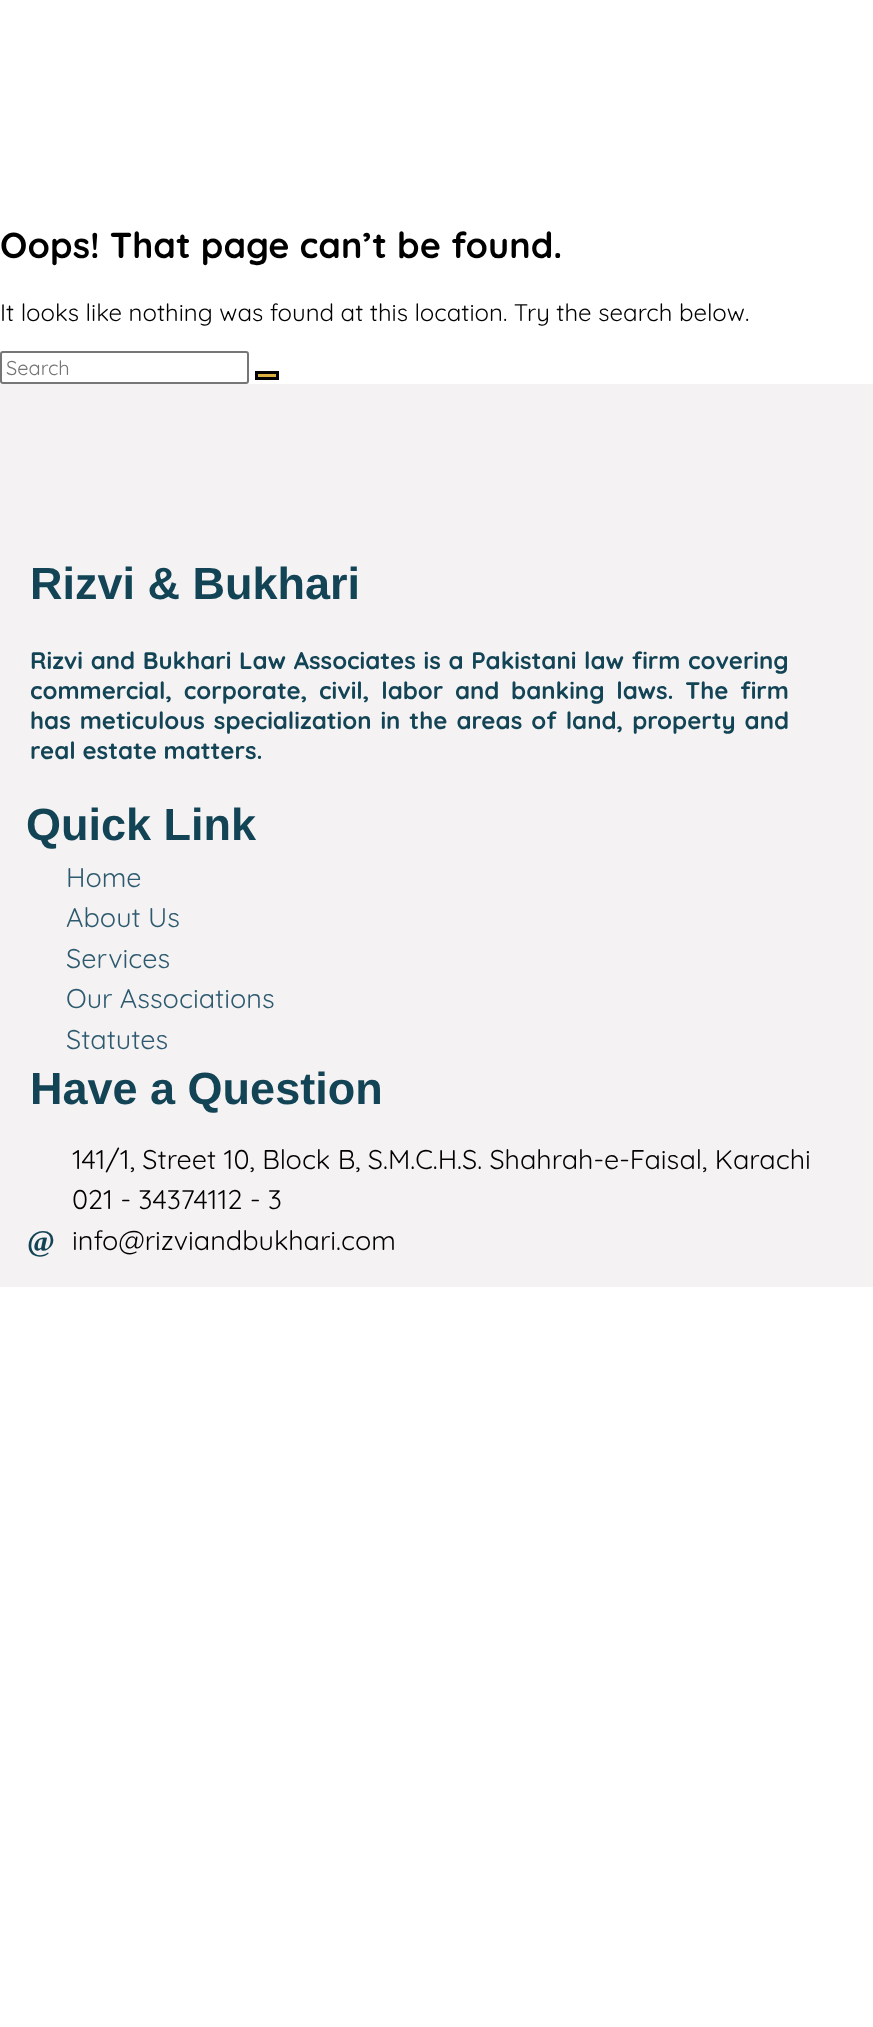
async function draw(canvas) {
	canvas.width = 873;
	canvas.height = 2027;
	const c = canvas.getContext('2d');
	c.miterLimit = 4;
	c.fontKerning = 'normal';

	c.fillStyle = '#fff';
	c.fillRect(0, 0, 873, 2027);
	c.font = 'bold 36px Quicksand';
	c.fillStyle = '#000';
	c.fillText('Oops! That page can’t be found.', 0, 258);
	c.font = '24px Quicksand';
	c.fillText('It looks like nothing was found at this location. Try the search below.', 0, 321);
	c.beginPath();
	c.roundRect(1, 352, 247, 31, 2);
	c.strokeStyle = '#767676';
	c.lineWidth = 2;
	c.stroke();
	c.font = '20px Quicksand';
	c.fillStyle = '#757575';
	c.fillText('Search', 6, 375);
	c.fillStyle = '#dbb041';
	c.beginPath();
	c.rect(256.5, 372.5, 21, 6);
	c.fill();
	c.strokeStyle = '#000';
	c.lineWidth = 3;
	c.stroke();
	c.fillStyle = '#f4f2f2';
	c.fillRect(0, 384, 873, 903);
	c.font = 'bold 45px Liberation Sans';
	c.fillStyle = '#124456';
	c.fillText('Rizvi & Bukhari', 30, 599);
	c.wordSpacing = '1px';
	c.font = 'bold 24px Quicksand';
	c.fillText('Rizvi and Bukhari Law Associates is a Pakistani law firm covering', 30, 669);
	c.wordSpacing = '5px';
	c.fillText('commercial, corporate, civil, labor and banking laws. The firm', 30, 699);
	c.wordSpacing = '2.25px';
	c.fillText('has meticulous specialization in the areas of land, property and', 30, 729);
	c.wordSpacing = '0px';
	c.fillText('real estate matters.', 30, 759);
	c.font = 'bold 45px Liberation Sans';
	c.fillText('Quick Link', 26, 840);
	c.font = '27px Quicksand';
	c.fillStyle = '#2e5a70';
	for (const [text, x, y] of [
		['Home', 66, 887],
		['About Us', 66, 927],
		['Services', 66, 968],
		['Our Associations', 66, 1008],
		['Statutes', 66, 1049],
	]) {
		c.fillText(text, x, y);
	}
	c.font = 'bold 45px Liberation Sans';
	c.fillStyle = '#124456';
	c.fillText('Have a Question', 30, 1104);
	c.font = '27px Quicksand';
	c.fillStyle = '#000';
	c.fillText('141/1, Street 10, Block B, S.M.C.H.S. Shahrah-e-Faisal, Karachi', 72, 1169);
	c.fillText('021 - 34374112 - 3', 72, 1209);
	c.font = 'bold 30px Liberation Serif';
	c.fillStyle = '#124456';
	c.fillText('@', 27, 1251);
	c.font = '27px Quicksand';
	c.fillStyle = '#000';
	c.fillText('info@rizviandbukhari.com', 72, 1250);
}

draw(document.querySelector('canvas'));
